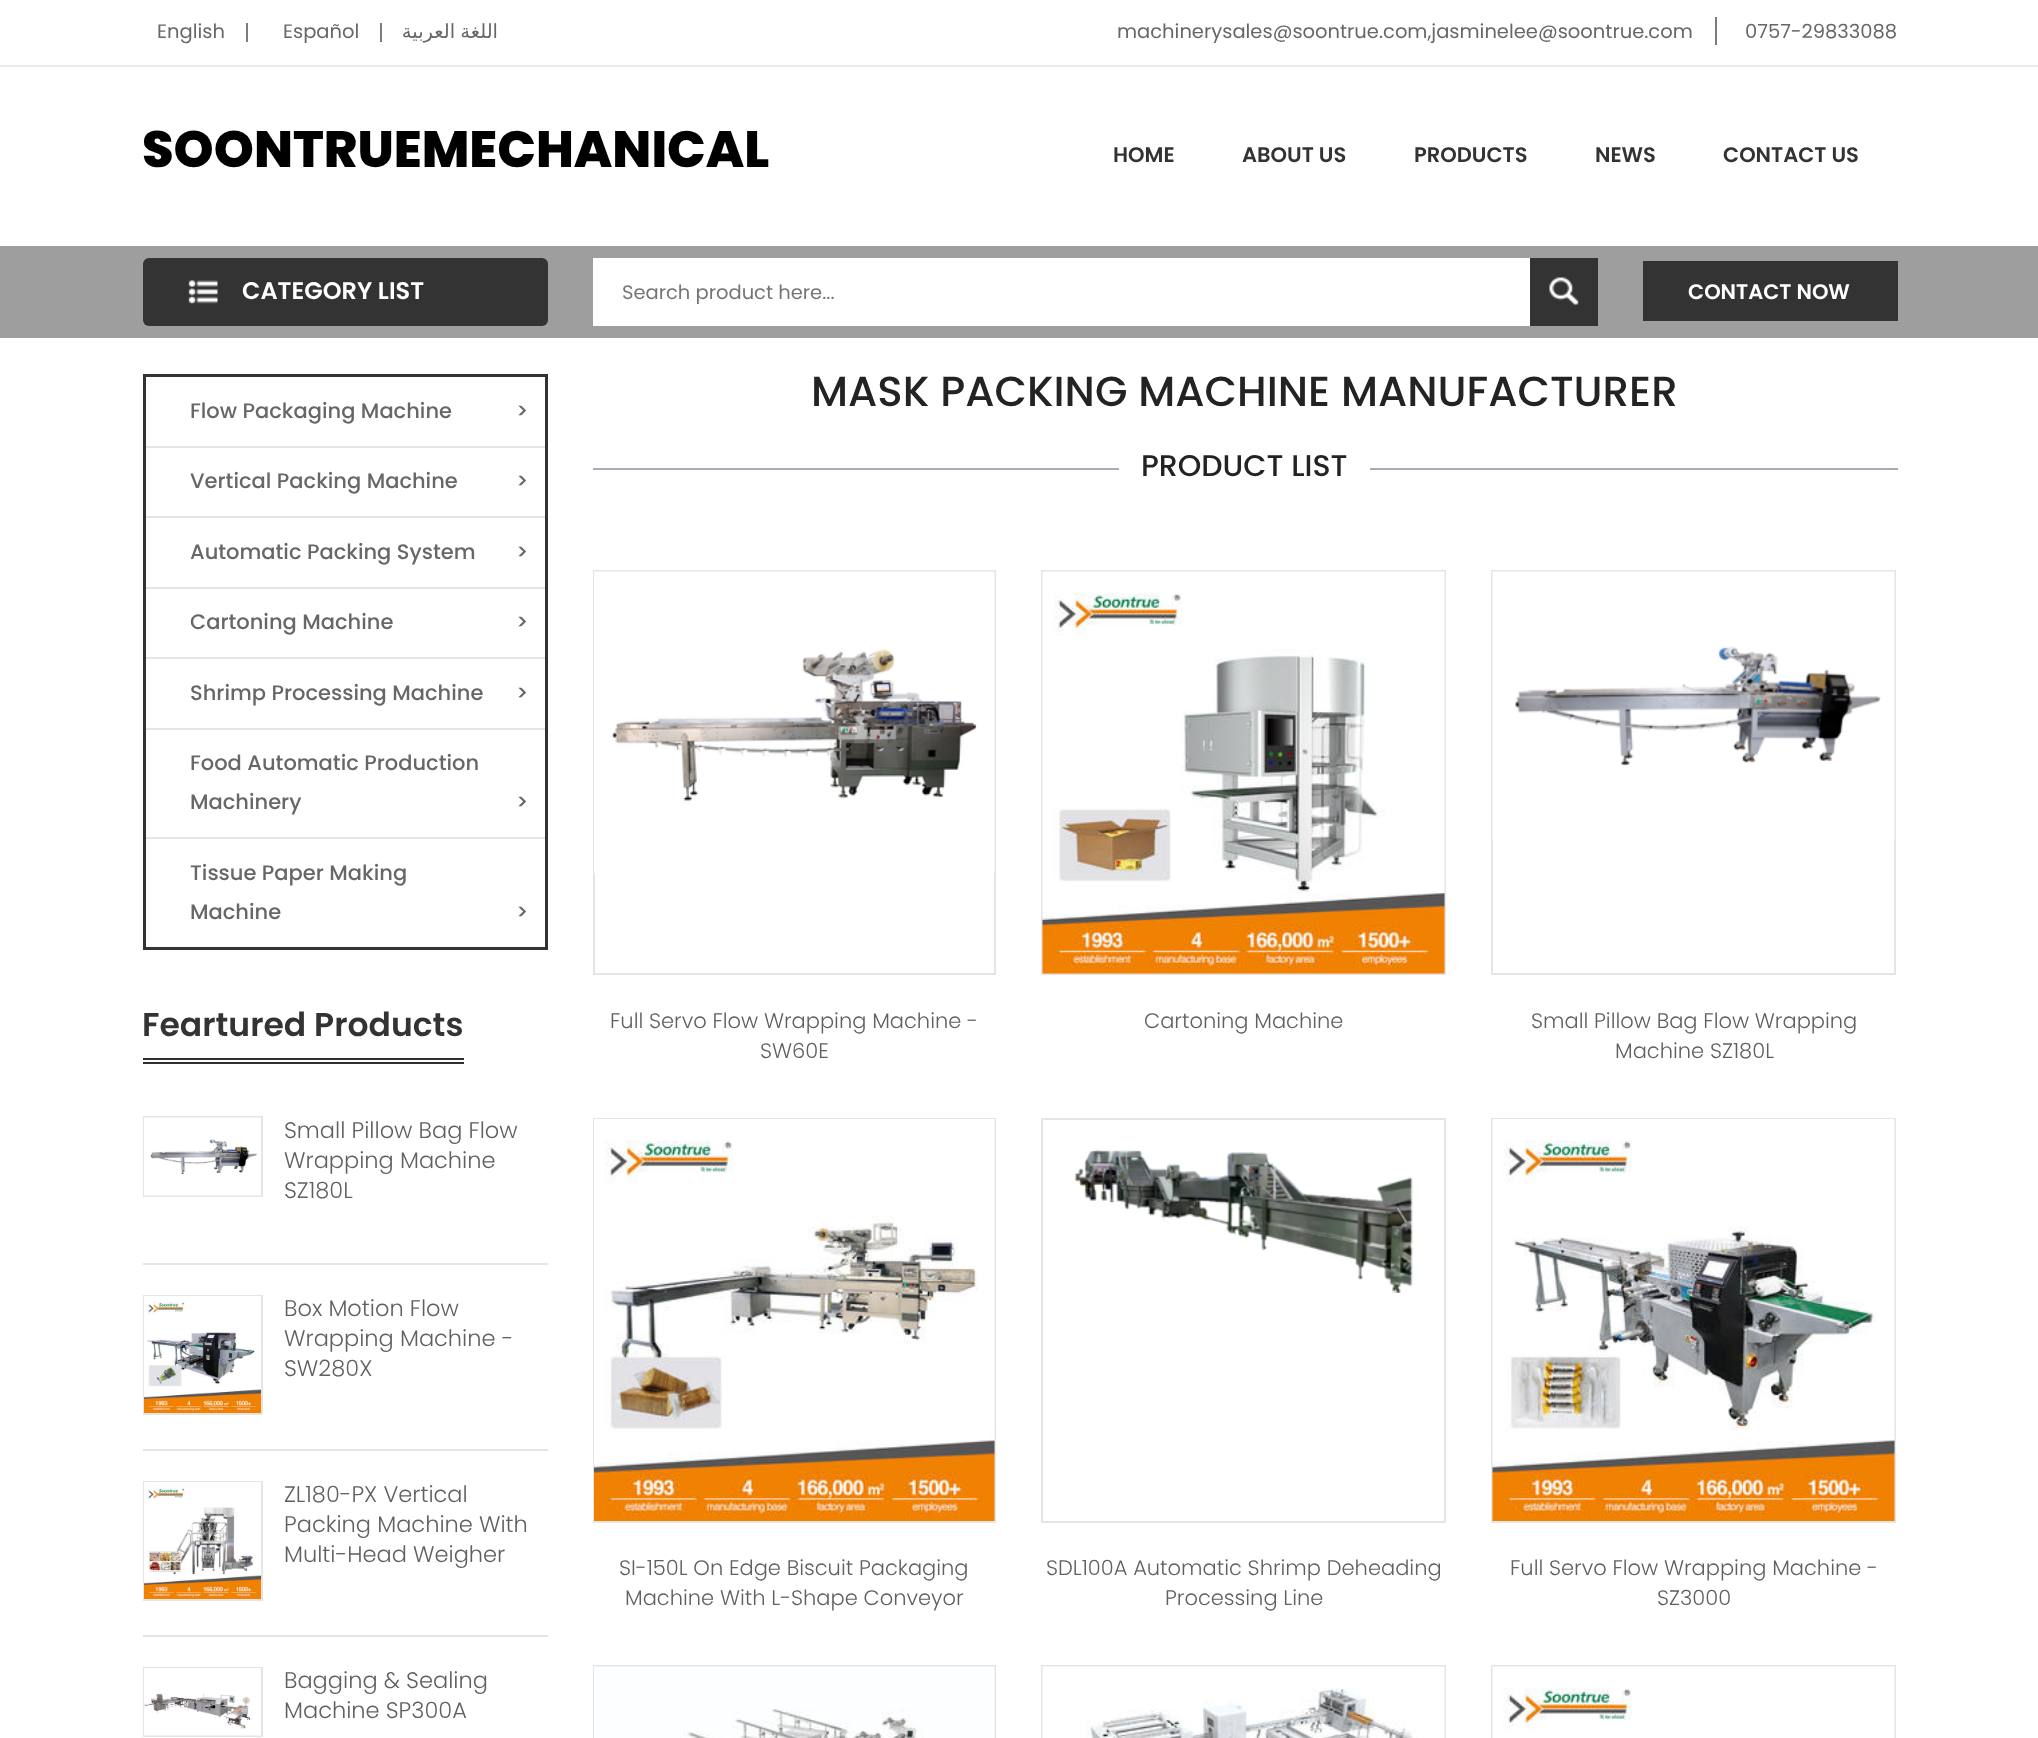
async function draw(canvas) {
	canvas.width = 2038;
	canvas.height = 1738;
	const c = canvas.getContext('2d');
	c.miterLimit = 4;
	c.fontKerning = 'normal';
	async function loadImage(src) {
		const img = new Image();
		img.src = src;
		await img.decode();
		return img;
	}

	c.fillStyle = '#fff';
	c.fillRect(0, 0, 2038, 1738);
	c.fillStyle = '#ebebeb';
	c.fillRect(0, 65, 2038, 2);
	c.font = '19.5px Poppins';
	c.fillStyle = '#676767';
	c.fillText('English', 157, 38);
	c.fillStyle = '#7c7c7c';
	c.fillRect(246, 23, 2, 19);
	c.fillStyle = '#676767';
	c.fillText('Español', 283, 38);
	c.fillStyle = '#7c7c7c';
	c.fillRect(380, 23, 2, 19);
	c.wordSpacing = '-1px';
	c.direction = 'rtl';
	c.font = '19.5px DejaVu Sans';
	c.fillStyle = '#676767';
	c.fillText('اللغة العربية', 498, 38);
	c.wordSpacing = '0px';
	c.direction = 'ltr';
	c.font = '19.5px Poppins';
	c.fillText('machinerysales@soontrue.com,jasminelee@soontrue.com', 1117, 38);
	c.fillStyle = '#7c7c7c';
	c.fillRect(1715, 17, 2, 28);
	c.fillStyle = '#676767';
	c.fillText('0757-29833088', 1745, 38);
	c.font = '800 51px Poppins';
	c.fillStyle = '#000';
	c.fillText('SOONTRUEMECHANICAL', 142, 167);
	c.font = '600 21px Poppins';
	c.fillStyle = '#333';
	for (const [text, x, y] of [
		['HOME', 1113, 162],
		['ABOUT US', 1242, 162],
		['PRODUCTS', 1414, 162],
		['NEWS', 1595, 162],
		['CONTACT US', 1723, 162],
	]) {
		c.fillText(text, x, y);
	}
	c.fillStyle = '#9e9e9e';
	c.fillRect(0, 246, 2038, 92);
	c.fillStyle = '#333';
	c.beginPath();
	c.roundRect(143, 258, 405, 68, 6);
	c.fill();
	c.drawImage(await loadImage('img1.png'), 188, 280, 30, 24);
	c.font = '600 24px Poppins';
	c.fillStyle = '#fff';
	c.fillText('CATEGORY LIST', 242, 299);
	c.fillRect(593, 258, 937, 68);
	c.font = '19.5px Poppins';
	c.fillStyle = '#757575';
	c.fillText('Search product here...', 622, 299);
	c.fillStyle = '#333';
	c.fillRect(1530, 258, 68, 68);
	c.drawImage(await loadImage('img2.png'), 1549, 277, 30, 28);
	c.fillRect(1643, 261, 255, 60);
	c.font = '600 21px Poppins';
	c.fillStyle = '#fff';
	c.fillText('CONTACT NOW', 1688, 299);
	c.strokeStyle = '#333';
	c.lineWidth = 3;
	c.strokeRect(144.5, 375.5, 402, 573);
	c.fillStyle = '#e5e5e5';
	c.fillRect(146, 446, 399, 2);
	c.font = '500 21px Poppins';
	c.fillStyle = '#676767';
	c.fillText('Flow Packaging Machine', 190, 418);
	c.fillText('>', 516, 418);
	c.fillStyle = '#e5e5e5';
	c.fillRect(146, 516, 399, 2);
	c.fillStyle = '#676767';
	c.fillText('Vertical Packing Machine', 190, 488);
	c.fillText('>', 516, 488);
	c.fillStyle = '#e5e5e5';
	c.fillRect(146, 587, 399, 2);
	c.fillStyle = '#676767';
	c.fillText('Automatic Packing System', 190, 559);
	c.fillText('>', 516, 559);
	c.fillStyle = '#e5e5e5';
	c.fillRect(146, 657, 399, 2);
	c.fillStyle = '#676767';
	c.fillText('Cartoning Machine', 190, 629);
	c.fillText('>', 516, 629);
	c.fillStyle = '#e5e5e5';
	c.fillRect(146, 728, 399, 2);
	c.fillStyle = '#676767';
	c.fillText('Shrimp Processing Machine', 190, 700);
	c.fillText('>', 516, 700);
	c.fillStyle = '#e5e5e5';
	c.fillRect(146, 837, 399, 2);
	c.fillStyle = '#676767';
	for (const [text, x, y] of [
		['Food Automatic Production', 190, 770],
		['Machinery', 190, 809],
		['>', 516, 809],
		['Tissue Paper Making', 190, 880],
		['Machine', 190, 919],
		['>', 516, 919],
	]) {
		c.fillText(text, x, y);
	}
	c.fillStyle = '#303030';
	c.fillRect(143, 1058, 321, 2);
	c.fillRect(143, 1062, 321, 2);
	c.font = '600 33px Poppins';
	c.fillStyle = '#333';
	c.fillText('Feartured Products', 142, 1036);
	c.fillStyle = '#e5e5e5';
	c.fillRect(143, 1263, 405, 2);
	c.strokeStyle = '#e5e5e5';
	c.lineWidth = 2;
	c.strokeRect(144, 1117, 118, 79);
	c.drawImage(await loadImage('img3.png'), 144, 1117, 117, 79);
	c.font = '300 22.5px Poppins';
	c.fillStyle = '#606060';
	for (const [text, x, y] of [
		['Small Pillow Bag Flow', 284, 1138],
		['Wrapping Machine', 284, 1168],
		['SZ180L', 284, 1198],
	]) {
		c.fillText(text, x, y);
	}
	c.fillStyle = '#e5e5e5';
	c.fillRect(143, 1449, 405, 2);
	c.strokeRect(144, 1296, 118, 118);
	c.drawImage(await loadImage('img4.png'), 144, 1296, 117, 117);
	c.fillStyle = '#606060';
	for (const [text, x, y] of [
		['Box Motion Flow', 284, 1316],
		['Wrapping Machine -', 284, 1346],
		['SW280X', 284, 1376],
	]) {
		c.fillText(text, x, y);
	}
	c.fillStyle = '#e5e5e5';
	c.fillRect(143, 1635, 405, 2);
	c.strokeRect(144, 1482, 118, 118);
	c.drawImage(await loadImage('img5.png'), 144, 1482, 117, 117);
	c.fillStyle = '#606060';
	for (const [text, x, y] of [
		['ZL180-PX Vertical', 284, 1502],
		['Packing Machine With', 284, 1532],
		['Multi-Head Weigher', 284, 1562],
	]) {
		c.fillText(text, x, y);
	}
	c.strokeRect(144, 1668, 118, 68);
	c.drawImage(await loadImage('img6.png'), 144, 1668, 117, 68);
	c.fillText('Bagging & Sealing', 284, 1688);
	c.fillText('Machine SP300A', 284, 1718);
	c.font = '500 42px Poppins';
	c.fillStyle = '#232323';
	c.fillText('MASK PACKING MACHINE MANUFACTURER', 811, 406);
	c.fillStyle = '#a5abb7';
	c.fillRect(593, 468, 526, 2);
	c.font = '500 30px Poppins';
	c.fillStyle = '#232323';
	c.fillText('PRODUCT LIST', 1141, 476);
	c.fillStyle = '#a5abb7';
	c.fillRect(1370, 468, 528, 2);
	c.strokeRect(594, 571, 401, 403);
	c.drawImage(await loadImage('img7.png'), 594, 571, 401, 302);
	c.font = '300 21px Poppins';
	c.fillStyle = '#606060';
	c.fillText('Full Servo Flow Wrapping Machine -', 610, 1028);
	c.fillText('SW60E', 760, 1058);
	c.strokeRect(1042, 571, 403, 403);
	c.drawImage(await loadImage('img8.png'), 1042, 571, 403, 403);
	c.fillText('Cartoning Machine', 1144, 1028);
	c.strokeRect(1492, 571, 403, 403);
	c.drawImage(await loadImage('img9.png'), 1492, 571, 403, 269);
	c.fillText('Small Pillow Bag Flow Wrapping', 1531, 1028);
	c.fillText('Machine SZ180L', 1615, 1058);
	c.strokeRect(594, 1119, 401, 403);
	c.drawImage(await loadImage('img10.png'), 594, 1119, 401, 402);
	c.fillText('SI-150L On Edge Biscuit Packaging', 619, 1575);
	c.fillText('Machine With L-Shape Conveyor', 625, 1605);
	c.strokeRect(1042, 1119, 403, 403);
	c.drawImage(await loadImage('img11.png'), 1074, 1149, 339, 144);
	c.fillText('SDL100A Automatic Shrimp Deheading', 1046, 1575);
	c.fillText('Processing Line', 1165, 1605);
	c.strokeRect(1492, 1119, 403, 403);
	c.drawImage(await loadImage('img12.png'), 1492, 1119, 403, 402);
	c.fillText('Full Servo Flow Wrapping Machine -', 1510, 1575);
	c.fillText('SZ3000', 1657, 1605);
	c.strokeRect(594, 1666, 401, 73);
	c.drawImage(await loadImage('img13.png'), 594, 1666, 401, 72);
	c.strokeRect(1042, 1666, 403, 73);
	c.drawImage(await loadImage('img14.png'), 1042, 1666, 403, 72);
	c.strokeRect(1492, 1666, 403, 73);
	c.drawImage(await loadImage('img15.png'), 1492, 1666, 403, 72);
}

draw(document.querySelector('canvas'));
